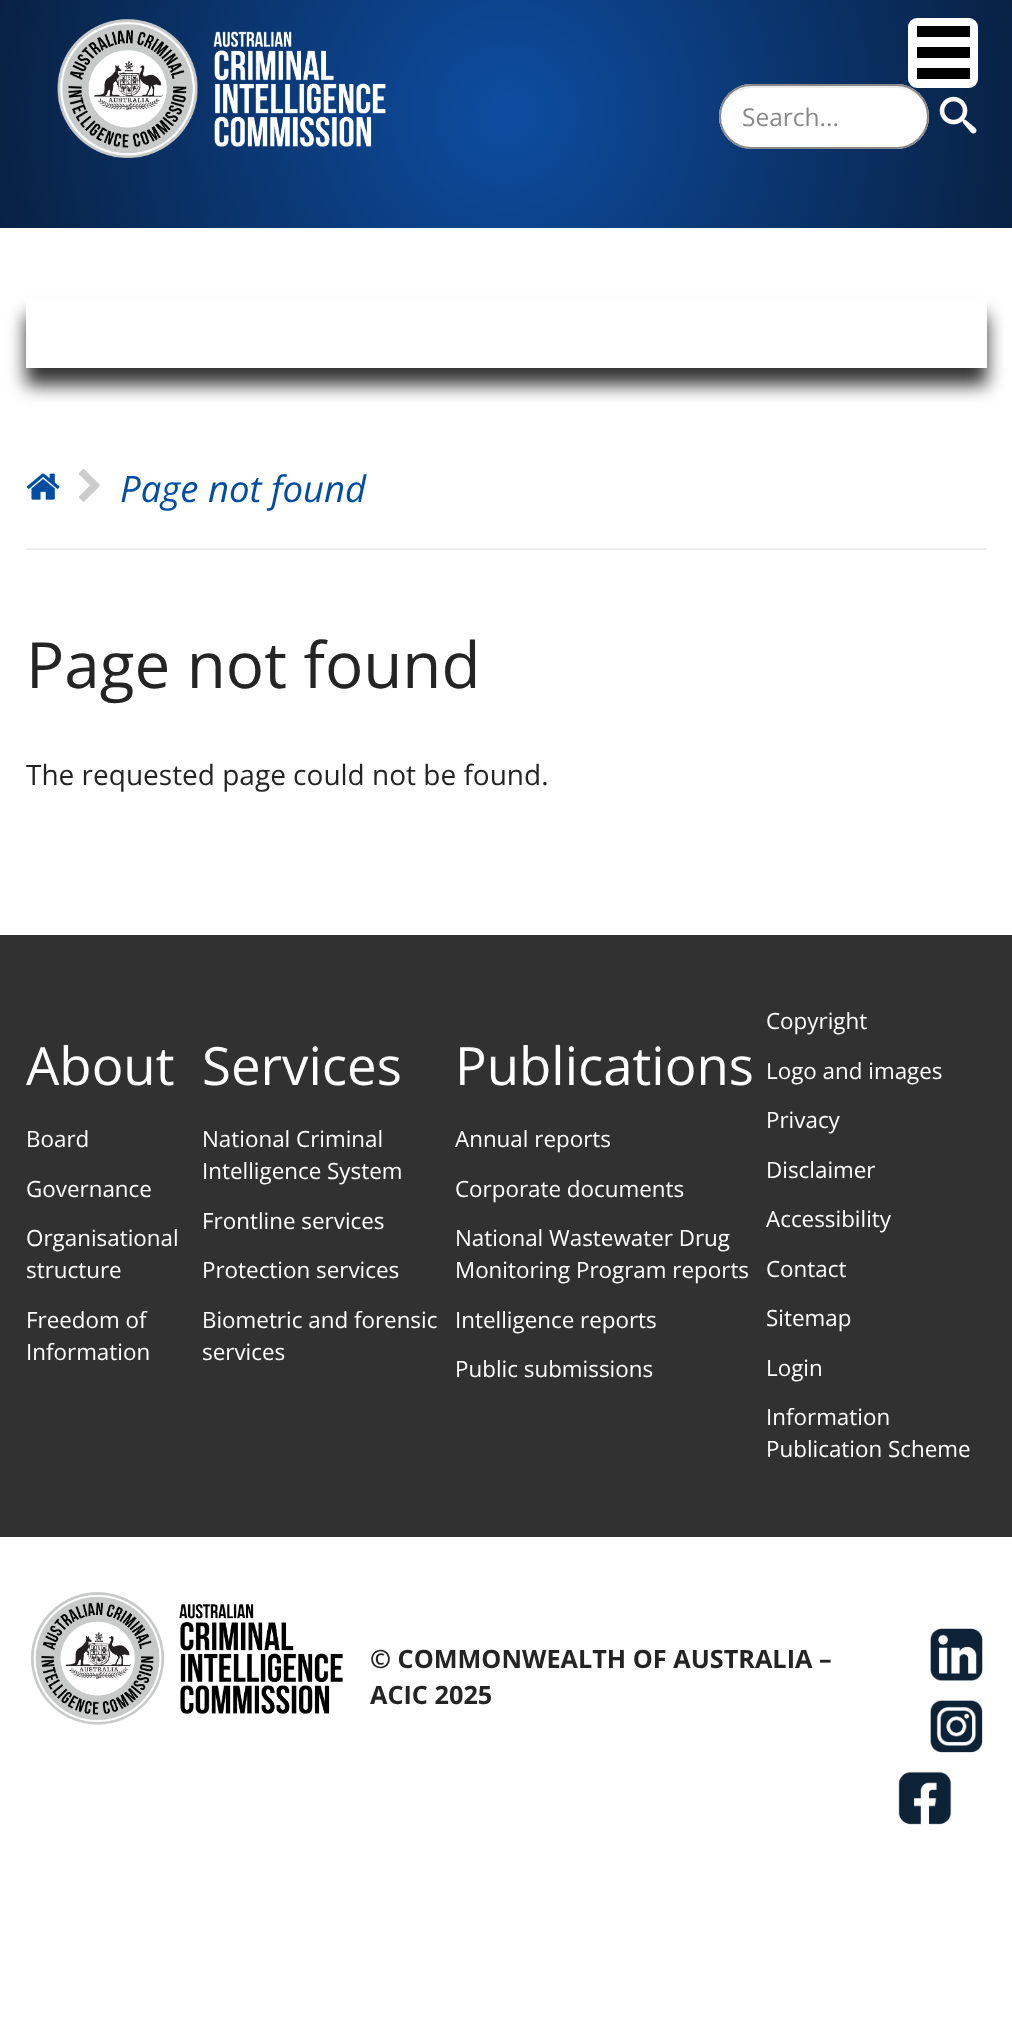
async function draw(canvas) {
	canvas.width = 1012;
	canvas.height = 2034;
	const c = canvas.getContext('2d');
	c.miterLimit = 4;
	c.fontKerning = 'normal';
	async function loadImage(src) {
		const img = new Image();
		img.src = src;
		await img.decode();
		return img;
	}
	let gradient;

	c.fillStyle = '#fff';
	c.fillRect(0, 0, 1012, 2034);
	gradient = c.createRadialGradient(507, 114, 0, 507, 114, 519);
	gradient.addColorStop(0, '#0d4da1');
	gradient.addColorStop(1, '#082143');
	c.fillStyle = gradient;
	c.fillRect(0, 0, 1012, 228);
	c.drawImage(await loadImage('img1.png'), 57, 18, 329, 140);
	c.beginPath();
	c.roundRect(912.5, 22.5, 61, 61, 4.5);
	c.strokeStyle = '#fff';
	c.lineWidth = 9;
	c.stroke();
	for (const [x, y, w, h, color] of [
		[917, 26, 53, 11, '#000'],
		[917, 37, 52, 10, '#fff'],
		[917, 47, 53, 11, '#000'],
		[917, 58, 52, 10, '#fff'],
		[917, 68, 53, 11, '#000'],
	]) {
		c.fillStyle = color;
		c.fillRect(x, y, w, h);
	}
	c.fillStyle = '#fff';
	c.beginPath();
	c.roundRect(719, 84, 210, 65, 32.5);
	c.fill();
	c.fillStyle = '#ececec';
	c.beginPath();
	c.moveTo(752, 88);
	c.lineTo(897, 88);
	c.bezierCurveTo(914, 88, 928, 101, 928, 117);
	c.lineTo(928, 116);
	c.bezierCurveTo(928, 100, 914, 86, 898, 86);
	c.lineTo(752, 86);
	c.bezierCurveTo(735, 86, 721, 100, 721, 116);
	c.lineTo(721, 117);
	c.bezierCurveTo(721, 101, 735, 88, 752, 88);
	c.closePath();
	c.fill();
	c.beginPath();
	c.roundRect(720, 85, 208, 63, 31.5);
	c.strokeStyle = '#888';
	c.lineWidth = 2;
	c.stroke();
	c.font = '24.5px Open Sans';
	c.fillStyle = '#888';
	c.fillText('Search...', 742, 126);
	c.drawImage(await loadImage('img2.png'), 939, 96, 38, 38);
	c.save();
	c.beginPath();
	c.moveTo(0, 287);
	c.lineTo(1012, 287);
	c.lineTo(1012, 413);
	c.lineTo(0, 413);
	c.closePath();
	c.moveTo(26, 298);
	c.lineTo(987, 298);
	c.lineTo(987, 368);
	c.lineTo(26, 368);
	c.closePath();
	c.clip('evenodd');
	c.fillStyle = '#333';
	c.filter = 'blur(9px)';
	c.beginPath();
	c.rect(26, 315, 961, 70);
	c.fill();
	c.filter = 'none';
	c.restore();
	c.fillStyle = '#eee';
	c.fillRect(26, 548, 961, 2);
	c.drawImage(await loadImage('img3.png'), 26, 473, 34, 27);
	c.drawImage(await loadImage('img4.png'), 78, 469, 22, 33);
	c.font = 'italic 36.5px Open Sans';
	c.fillStyle = '#024da1';
	c.fillText('Page not found', 120, 502);
	c.font = '63.75px Open Sans';
	c.fillStyle = '#242424';
	c.fillText('Page not found', 26, 688);
	c.font = '28px Open Sans';
	c.fillText('The requested page could not be found.', 26, 785);
	c.fillStyle = '#313131';
	c.fillRect(0, 935, 1012, 602);
	c.font = '52.75px Open Sans';
	c.fillStyle = '#fff';
	c.fillText('About', 26, 1085);
	c.font = '22.4px Open Sans';
	for (const [text, x, y] of [
		['Board', 26, 1147],
		['Governance', 26, 1197],
		['Organisational', 26, 1246],
		['structure', 26, 1278],
		['Freedom of', 26, 1328],
		['Information', 26, 1360],
	]) {
		c.fillText(text, x, y);
	}
	c.font = '52.75px Open Sans';
	c.fillText('Services', 202, 1085);
	c.font = '22.4px Open Sans';
	for (const [text, x, y] of [
		['National Criminal', 202, 1147],
		['Intelligence System', 202, 1179],
		['Frontline services', 202, 1229],
		['Protection services', 202, 1278],
		['Biometric and forensic', 202, 1328],
		['services', 202, 1360],
	]) {
		c.fillText(text, x, y);
	}
	c.font = '52.75px Open Sans';
	c.fillText('Publications', 455, 1085);
	c.font = '22.4px Open Sans';
	for (const [text, x, y] of [
		['Annual reports', 455, 1147],
		['Corporate documents', 455, 1197],
		['National Wastewater Drug', 455, 1246],
		['Monitoring Program reports', 455, 1278],
		['Intelligence reports', 455, 1328],
		['Public submissions', 455, 1377],
		['Copyright', 766, 1029],
		['Logo and images', 766, 1079],
		['Privacy', 766, 1128],
		['Disclaimer', 766, 1178],
		['Accessibility', 766, 1227],
		['Contact', 766, 1277],
		['Sitemap', 766, 1326],
		['Login', 766, 1376],
		['Information', 766, 1425],
		['Publication Scheme', 766, 1457],
	]) {
		c.fillText(text, x, y);
	}
	c.drawImage(await loadImage('img5.png'), 30, 1592, 313, 133);
	c.font = 'bold 25.25px Open Sans';
	c.fillStyle = '#242424';
	c.fillText('© COMMONWEALTH OF AUSTRALIA –', 370, 1668);
	c.fillText('ACIC 2025', 370, 1704);
	c.drawImage(await loadImage('img6.png'), 930, 1628, 53, 53);
	c.drawImage(await loadImage('img7.png'), 930, 1700, 53, 53);
	c.drawImage(await loadImage('img8.png'), 898, 1771, 54, 54);
}

draw(document.querySelector('canvas'));
